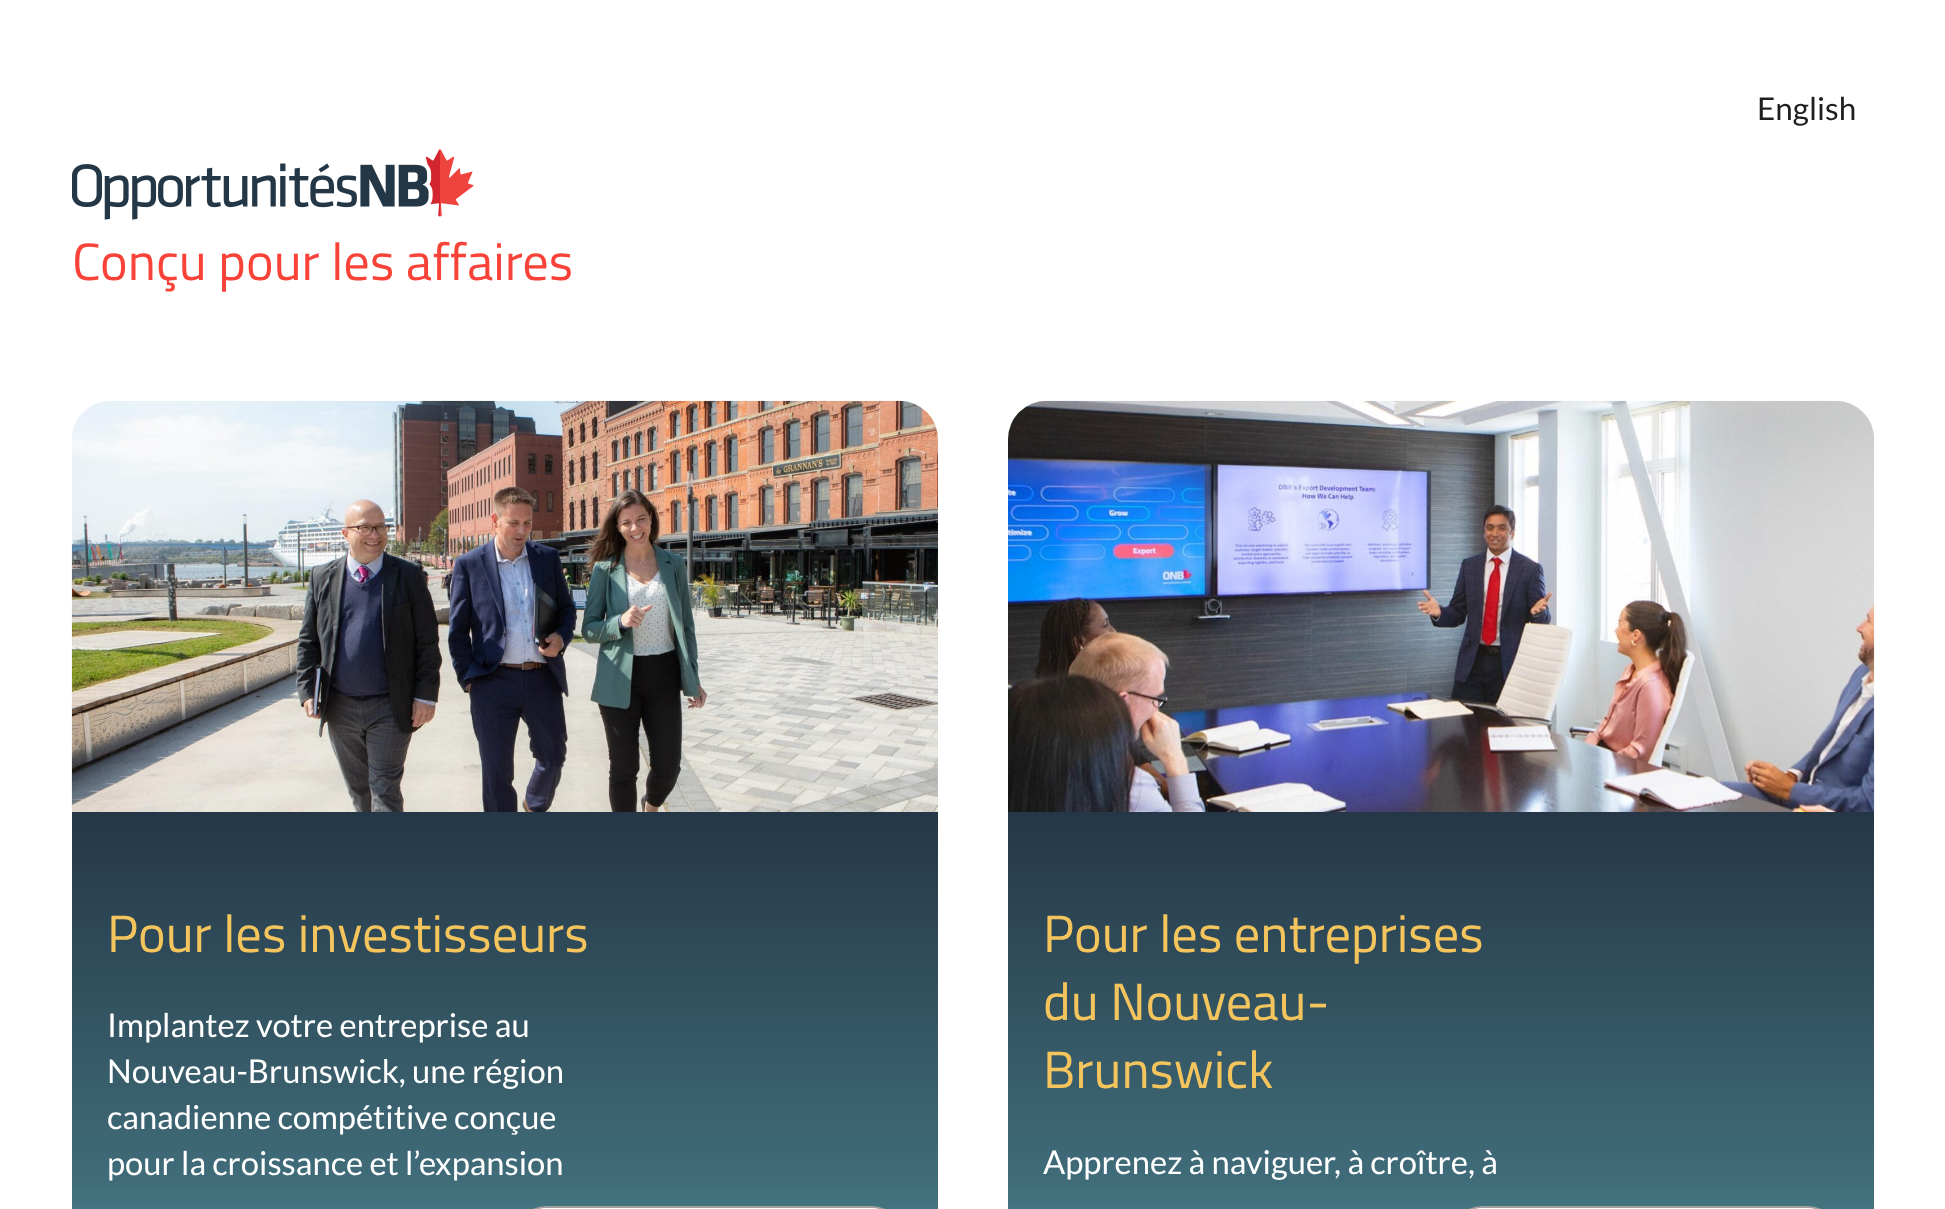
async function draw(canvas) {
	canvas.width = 1945;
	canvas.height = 1209;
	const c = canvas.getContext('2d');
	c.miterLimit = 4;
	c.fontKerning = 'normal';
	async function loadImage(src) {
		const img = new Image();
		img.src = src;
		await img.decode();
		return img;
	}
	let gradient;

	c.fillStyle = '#fff';
	c.fillRect(0, 0, 1945, 1209);
	c.font = '31.5px Lato';
	c.fillStyle = '#1f1f1f';
	c.fillText('English', 1757, 120);
	c.drawImage(await loadImage('img1.png'), 72, 149, 402, 71);
	c.font = '52.5px Titillium Web';
	c.fillStyle = '#f94339';
	c.fillText('Conçu pour les affaires', 72, 280);
	c.drawImage(await loadImage('img2.png'), 71, 400, 867, 412);
	gradient = c.createLinearGradient(505, 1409, 505, 812);
	gradient.addColorStop(0, '#63b1bc');
	gradient.addColorStop(0.38, '#406c79');
	gradient.addColorStop(1, '#253746');
	c.fillStyle = gradient;
	c.fillRect(72, 812, 866, 397);
	c.fillStyle = '#f4c45d';
	c.fillText('Pour les investisseurs', 107, 952);
	c.font = '32.75px Lato';
	c.fillStyle = '#fff';
	for (const [text, x, y] of [
		['Implantez votre entreprise au', 107, 1037],
		['Nouveau-Brunswick, une région', 107, 1083],
		['canadienne compétitive conçue', 107, 1129],
		['pour la croissance et l’expansion', 107, 1175],
	]) {
		c.fillText(text, x, y);
	}
	c.beginPath();
	c.roundRect(516, 1207, 386, 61, 56.5);
	c.fill();
	c.strokeStyle = '#a39f9f';
	c.lineWidth = 2;
	c.stroke();
	c.drawImage(await loadImage('img3.png'), 1008, 400, 867, 412);
	gradient = c.createLinearGradient(1441, 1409, 1441, 812);
	gradient.addColorStop(0, '#63b1bc');
	gradient.addColorStop(0.38, '#406c79');
	gradient.addColorStop(1, '#253746');
	c.fillStyle = gradient;
	c.fillRect(1008, 812, 866, 397);
	c.font = '52.5px Titillium Web';
	c.fillStyle = '#f4c45d';
	for (const [text, x, y] of [
		['Pour les entreprises', 1043, 952],
		['du Nouveau-', 1043, 1020],
		['Brunswick', 1043, 1088],
	]) {
		c.fillText(text, x, y);
	}
	c.font = '32.75px Lato';
	c.fillStyle = '#fff';
	c.fillText('Apprenez à naviguer, à croître, à', 1043, 1174);
	c.beginPath();
	c.roundRect(1452, 1207, 386, 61, 56.5);
	c.fill();
	c.stroke();
}

draw(document.querySelector('canvas'));
